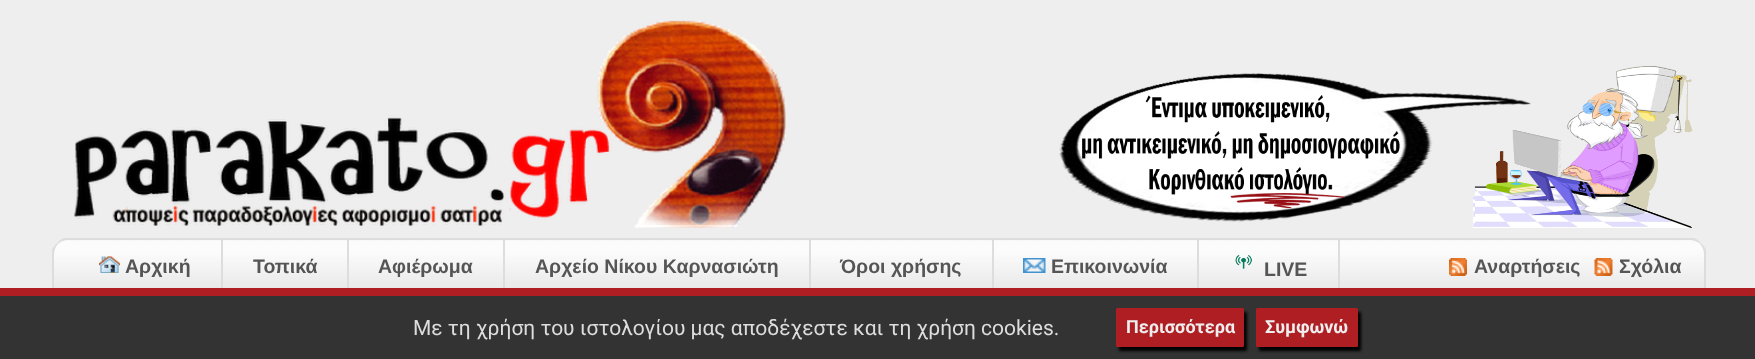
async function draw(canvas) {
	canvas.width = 1755;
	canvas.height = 359;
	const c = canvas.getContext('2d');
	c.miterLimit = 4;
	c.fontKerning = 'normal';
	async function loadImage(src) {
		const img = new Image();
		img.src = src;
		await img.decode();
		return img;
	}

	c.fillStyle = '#eee';
	c.fillRect(0, 0, 1755, 359);
	c.drawImage(await loadImage('img1.png'), 74, 20, 712, 208);
	c.drawImage(await loadImage('img2.png'), 1059, 66, 634, 162);
	c.drawImage(await loadImage('img3.png'), 53, 239, 1652, 49);
	c.fillStyle = '#ddd';
	c.beginPath();
	c.moveTo(68, 240);
	c.bezierCurveTo(64, 240, 60, 242, 58, 244);
	c.lineTo(57, 243);
	c.bezierCurveTo(59, 241, 61, 239, 64, 238);
	c.lineTo(1694, 238);
	c.bezierCurveTo(1697, 239, 1699, 241, 1701, 243);
	c.lineTo(1700, 244);
	c.bezierCurveTo(1698, 242, 1694, 240, 1690, 240);
	c.closePath();
	c.fill();
	c.beginPath();
	c.moveTo(1701, 243);
	c.bezierCurveTo(1703, 245, 1705, 247, 1706, 250);
	c.lineTo(1706, 302);
	c.lineTo(1704, 300);
	c.lineTo(1704, 254);
	c.bezierCurveTo(1704, 250, 1702, 246, 1700, 244);
	c.closePath();
	c.fill();
	c.beginPath();
	c.moveTo(52, 302);
	c.lineTo(52, 250);
	c.bezierCurveTo(53, 247, 55, 245, 57, 243);
	c.lineTo(58, 244);
	c.bezierCurveTo(56, 246, 54, 250, 54, 254);
	c.lineTo(54, 300);
	c.closePath();
	c.fill();
	c.fillRect(221, 240, 2, 53);
	c.drawImage(await loadImage('img4.png'), 99, 256, 21, 17);
	c.font = 'bold 19.5px Liberation Sans';
	c.fillStyle = '#555';
	c.fillText('Αρχική', 125, 273);
	c.fillStyle = '#ddd';
	c.fillRect(347, 240, 2, 53);
	c.fillStyle = '#555';
	c.fillText('Τοπικά', 253, 273);
	c.fillStyle = '#ddd';
	c.fillRect(503, 240, 2, 53);
	c.fillStyle = '#555';
	c.fillText('Αφιέρωμα', 378, 273);
	c.fillStyle = '#ddd';
	c.fillRect(809, 240, 2, 53);
	c.fillStyle = '#555';
	c.fillText('Αρχείο Νίκου Καρνασιώτη', 535, 273);
	c.fillStyle = '#ddd';
	c.fillRect(992, 240, 2, 53);
	c.fillStyle = '#555';
	c.fillText('Όροι χρήσης', 840, 273);
	c.fillStyle = '#ddd';
	c.fillRect(1197, 240, 2, 53);
	c.drawImage(await loadImage('img5.png'), 1023, 258, 23, 15);
	c.fillStyle = '#555';
	c.fillText('Επικοινωνία', 1051, 273);
	c.fillStyle = '#ddd';
	c.fillRect(1338, 240, 2, 56);
	c.drawImage(await loadImage('img6.png'), 1235, 255, 17, 14);
	c.fillStyle = '#555';
	c.fillText('LIVE', 1264, 276);
	c.drawImage(await loadImage('img7.png'), 1449, 258, 18, 18);
	c.fillText('Αναρτήσεις', 1474, 273);
	c.drawImage(await loadImage('img8.png'), 1594, 258, 19, 18);
	c.fillText('Σχόλια', 1619, 273);
	c.fillStyle = '#333';
	c.fillRect(0, 296, 1755, 63);
	c.fillStyle = '#af1e23';
	c.fillRect(0, 288, 1755, 8);
	c.font = '21px Roboto';
	c.fillStyle = '#ddd';
	c.fillText('Με τη χρήση του ιστολογίου μας αποδέχεστε και τη χρήση cookies.', 413, 335);
	c.fillStyle = '#000';
	c.filter = 'blur(1.5px)';
	c.beginPath();
	c.roundRect(1119, 312, 128, 39, 1.5);
	c.fill();
	c.filter = 'none';
	c.fillStyle = '#af1e23';
	c.beginPath();
	c.roundRect(1116, 308, 128, 39, 1.5);
	c.fill();
	c.font = 'bold 18px Roboto';
	c.fillStyle = '#eee';
	c.fillText('Περισσότερα', 1126, 333);
	c.fillStyle = '#000';
	c.filter = 'blur(1.5px)';
	c.beginPath();
	c.roundRect(1259, 312, 102, 39, 1.5);
	c.fill();
	c.filter = 'none';
	c.fillStyle = '#af1e23';
	c.beginPath();
	c.roundRect(1256, 308, 102, 39, 1.5);
	c.fill();
	c.fillStyle = '#eee';
	c.fillText('Συμφωνώ', 1265, 333);
}

draw(document.querySelector('canvas'));
